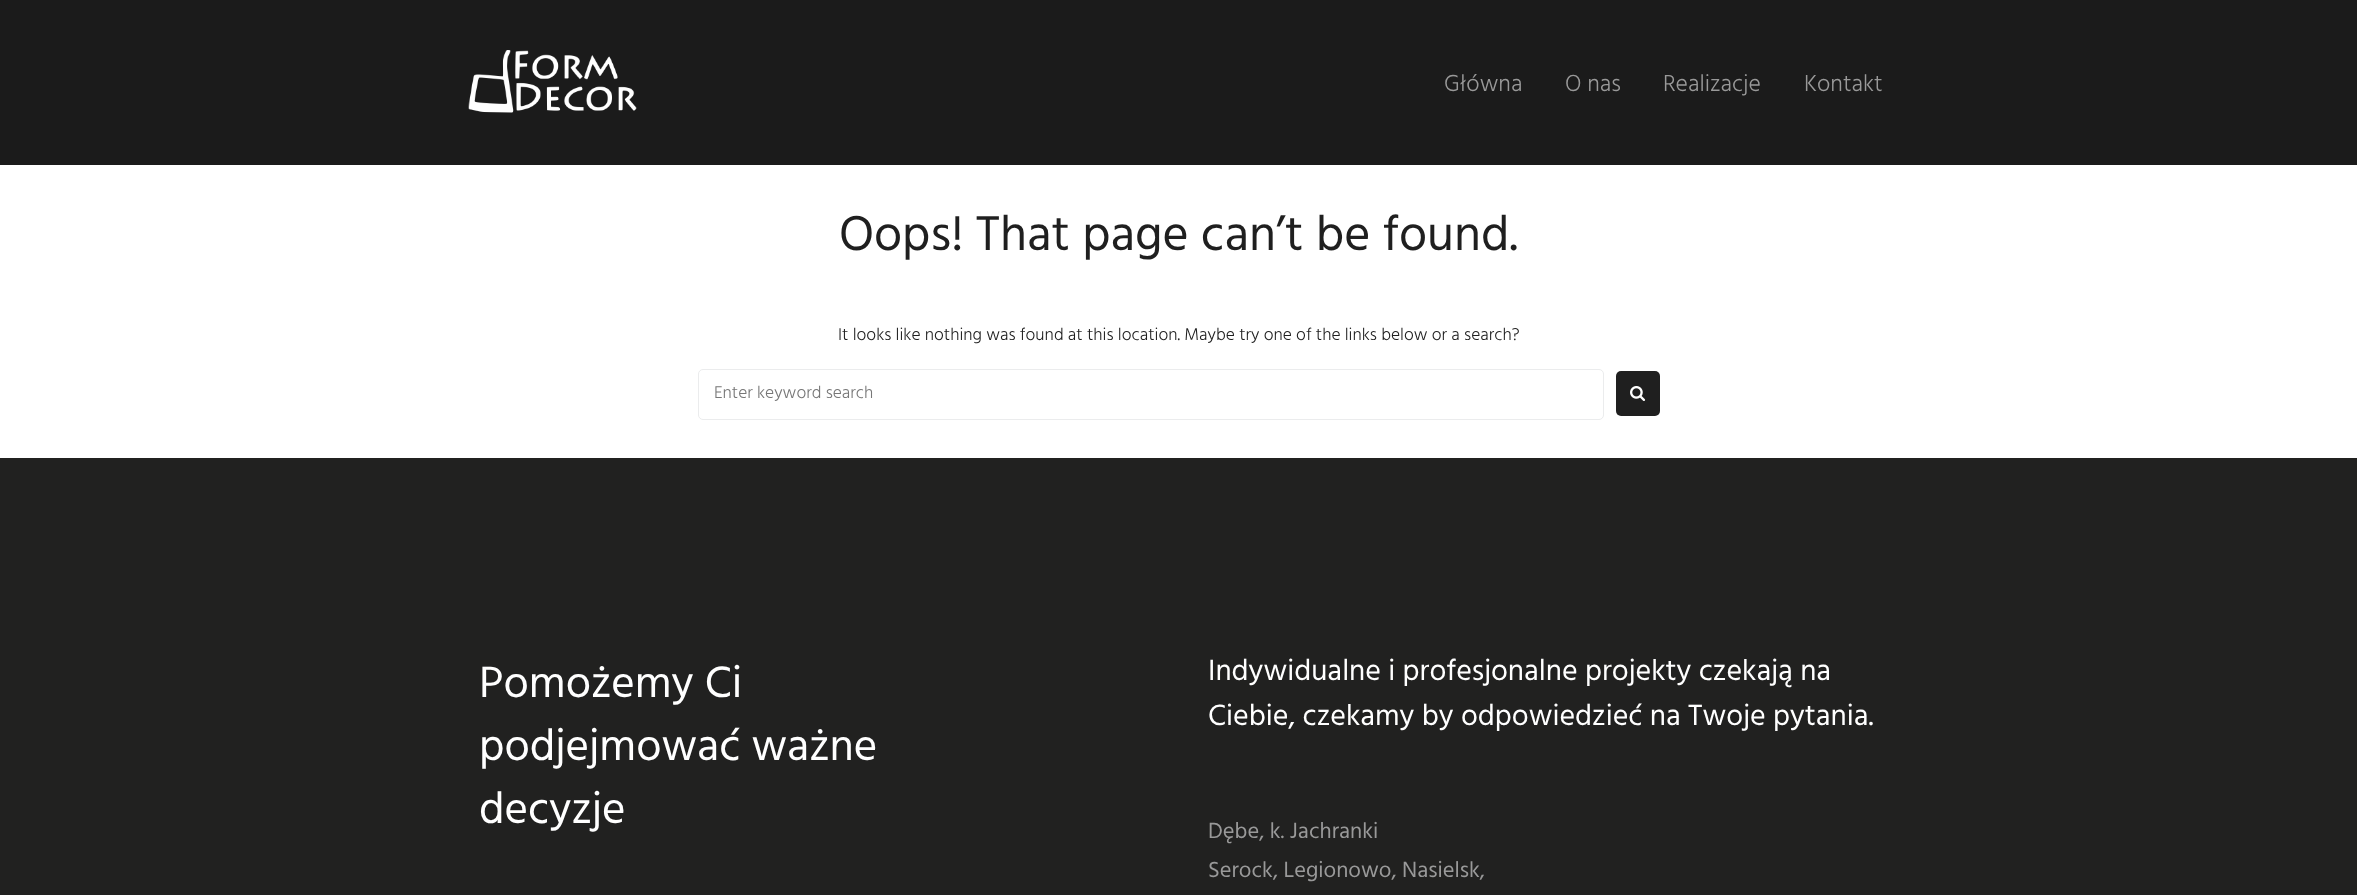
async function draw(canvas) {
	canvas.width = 2357;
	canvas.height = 895;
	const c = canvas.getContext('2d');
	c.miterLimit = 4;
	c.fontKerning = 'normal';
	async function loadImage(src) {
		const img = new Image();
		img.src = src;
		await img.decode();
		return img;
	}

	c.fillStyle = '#fff';
	c.fillRect(0, 0, 2357, 895);
	c.fillStyle = '#1b1b1b';
	c.fillRect(0, 0, 2357, 165);
	c.drawImage(await loadImage('img1.png'), 468, 50, 169, 63);
	c.font = '300 23.75px Hind';
	c.fillStyle = '#999';
	for (const [text, x, y] of [
		['Główna', 1444, 91],
		['O nas', 1565, 91],
		['Realizacje', 1663, 91],
		['Kontakt', 1804, 91],
	]) {
		c.fillText(text, x, y);
	}
	c.font = '50px Hind';
	c.fillStyle = '#1f1f1f';
	c.fillText('Oops! That page can’t be found.', 839, 250);
	c.font = '300 17.5px Hind';
	c.fillText('It looks like nothing was found at this location. Maybe try one of the links below or a search?', 838, 340);
	c.beginPath();
	c.roundRect(698.5, 369.5, 905, 50, 4.5);
	c.strokeStyle = '#ebeced';
	c.stroke();
	c.fillStyle = '#777';
	c.fillText('Enter keyword search', 714, 398);
	c.fillStyle = '#1f1f1f';
	c.beginPath();
	c.roundRect(1616, 371, 44, 45, 5);
	c.fill();
	c.drawImage(await loadImage('img2.png'), 1630, 386, 16, 15);
	c.fillStyle = '#212120';
	c.fillRect(0, 458, 2357, 437);
	c.font = '45px Hind';
	c.fillStyle = '#fff';
	for (const [text, x, y] of [
		['Pomożemy Ci', 479, 697],
		['podjejmować ważne', 479, 760],
		['decyzje', 479, 823],
	]) {
		c.fillText(text, x, y);
	}
	c.font = '30px Hind';
	c.fillText('Indywidualne i profesjonalne projekty czekają na', 1208, 680);
	c.fillText('Ciebie, czekamy by odpowiedzieć na Twoje pytania.', 1208, 725);
	c.font = '22.5px Hind';
	c.fillStyle = '#999';
	c.fillText('Dębe, k. Jachranki', 1208, 838);
	c.fillText('Serock, Legionowo, Nasielsk,', 1208, 877);
}

draw(document.querySelector('canvas'));
